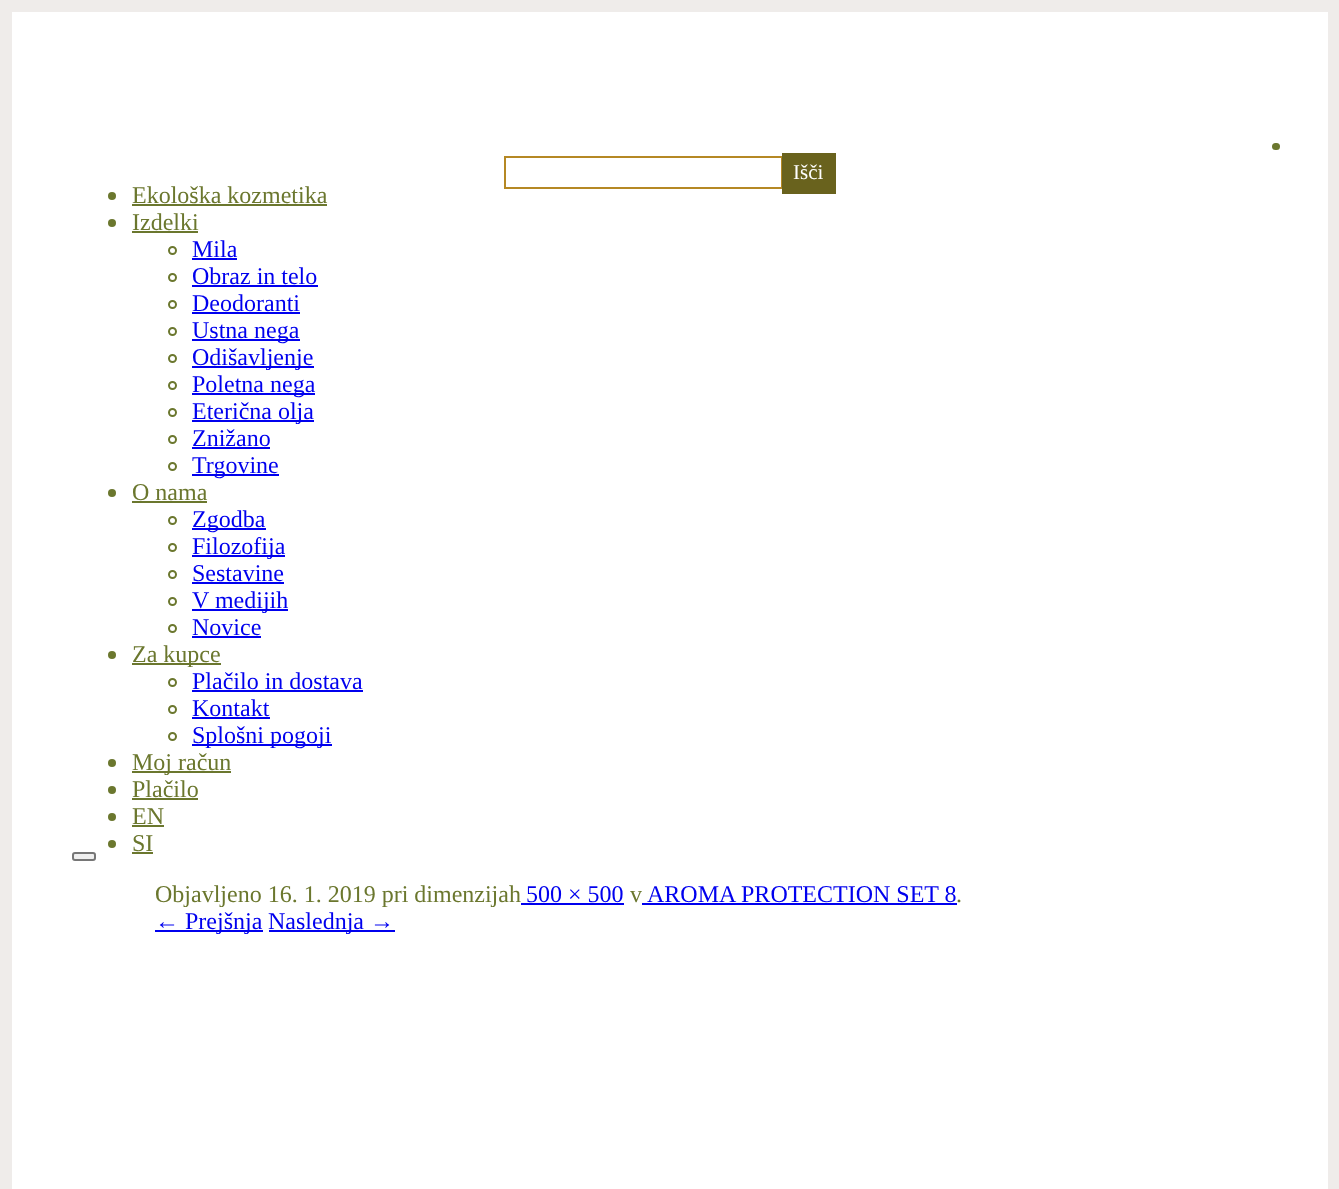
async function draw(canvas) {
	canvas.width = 1339;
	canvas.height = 1189;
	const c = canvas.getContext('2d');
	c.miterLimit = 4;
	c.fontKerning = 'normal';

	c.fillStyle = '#efecea';
	c.fillRect(0, 0, 1339, 1189);
	c.fillStyle = '#fff';
	c.fillRect(12, 12, 1316, 1177);
	c.strokeStyle = '#b58824';
	c.lineWidth = 2;
	c.strokeRect(505, 157, 277, 31);
	c.fillStyle = '#69621d';
	c.fillRect(782, 153, 54, 41);
	c.font = '21px Liberation Serif';
	c.fillStyle = '#fff';
	c.fillText('Išči', 793, 179);
	c.fillStyle = '#6b772e';
	c.beginPath();
	c.roundRect(1272, 143, 8, 7, 3.5);
	c.fill();
	c.beginPath();
	c.arc(112, 196, 4, 0, 2 * Math.PI);
	c.fill();
	c.font = '24px Liberation Serif';
	c.fillText('Ekološka kozmetika', 132, 203);
	c.fillRect(132, 204, 195, 2);
	c.beginPath();
	c.arc(112, 223, 4, 0, 2 * Math.PI);
	c.fill();
	c.fillText('Izdelki', 132, 230);
	c.fillRect(132, 231, 66, 2);
	c.beginPath();
	c.arc(172.5, 250.5, 3.5, 0, 2 * Math.PI);
	c.strokeStyle = '#6b772e';
	c.stroke();
	c.fillStyle = '#00e';
	c.fillText('Mila', 192, 257);
	c.fillRect(192, 258, 45, 2);
	c.beginPath();
	c.arc(172.5, 277.5, 3.5, 0, 2 * Math.PI);
	c.stroke();
	c.fillText('Obraz in telo', 192, 284);
	c.fillRect(192, 285, 126, 2);
	c.beginPath();
	c.arc(172.5, 304.5, 3.5, 0, 2 * Math.PI);
	c.stroke();
	c.fillText('Deodoranti', 192, 311);
	c.fillRect(192, 312, 108, 2);
	c.beginPath();
	c.arc(172.5, 331.5, 3.5, 0, 2 * Math.PI);
	c.stroke();
	c.fillRect(192, 339, 108, 2);
	c.fillText('Ustna nega', 192, 338);
	c.beginPath();
	c.arc(172.5, 358.5, 3.5, 0, 2 * Math.PI);
	c.stroke();
	c.fillRect(192, 366, 122, 2);
	c.fillText('Odišavljenje', 192, 365);
	c.beginPath();
	c.arc(172.5, 385.5, 3.5, 0, 2 * Math.PI);
	c.stroke();
	c.fillRect(192, 393, 123, 2);
	c.fillText('Poletna nega', 192, 392);
	c.beginPath();
	c.arc(172.5, 412.5, 3.5, 0, 2 * Math.PI);
	c.stroke();
	c.fillRect(192, 420, 122, 2);
	c.fillText('Eterična olja', 192, 419);
	c.beginPath();
	c.arc(172.5, 439.5, 3.5, 0, 2 * Math.PI);
	c.stroke();
	c.fillText('Znižano', 192, 446);
	c.fillRect(192, 447, 78, 2);
	c.beginPath();
	c.arc(172.5, 466.5, 3.5, 0, 2 * Math.PI);
	c.stroke();
	c.fillRect(192, 474, 87, 2);
	c.fillText('Trgovine', 192, 473);
	c.fillStyle = '#6b772e';
	c.beginPath();
	c.arc(112, 493, 4, 0, 2 * Math.PI);
	c.fill();
	c.fillText('O nama', 132, 500);
	c.fillRect(132, 501, 75, 2);
	c.beginPath();
	c.arc(172.5, 520.5, 3.5, 0, 2 * Math.PI);
	c.stroke();
	c.fillStyle = '#00e';
	c.fillRect(192, 528, 74, 2);
	c.fillText('Zgodba', 192, 527);
	c.beginPath();
	c.arc(172.5, 547.5, 3.5, 0, 2 * Math.PI);
	c.stroke();
	c.fillRect(192, 555, 93, 2);
	c.fillText('Filozofija', 192, 554);
	c.beginPath();
	c.arc(172.5, 574.5, 3.5, 0, 2 * Math.PI);
	c.stroke();
	c.fillText('Sestavine', 192, 581);
	c.fillRect(192, 582, 92, 2);
	c.beginPath();
	c.arc(172.5, 601.5, 3.5, 0, 2 * Math.PI);
	c.stroke();
	c.fillRect(192, 609, 96, 2);
	c.fillText('V medijih', 192, 608);
	c.beginPath();
	c.arc(172.5, 628.5, 3.5, 0, 2 * Math.PI);
	c.stroke();
	c.fillText('Novice', 192, 635);
	c.fillRect(192, 636, 69, 2);
	c.fillStyle = '#6b772e';
	c.beginPath();
	c.arc(112, 655, 4, 0, 2 * Math.PI);
	c.fill();
	c.fillRect(132, 663, 89, 2);
	c.fillText('Za kupce', 132, 662);
	c.beginPath();
	c.arc(172.5, 682.5, 3.5, 0, 2 * Math.PI);
	c.stroke();
	c.fillStyle = '#00e';
	c.fillText('Plačilo in dostava', 192, 689);
	c.fillRect(192, 690, 171, 2);
	c.beginPath();
	c.arc(172.5, 709.5, 3.5, 0, 2 * Math.PI);
	c.stroke();
	c.fillText('Kontakt', 192, 716);
	c.fillRect(192, 717, 78, 2);
	c.beginPath();
	c.arc(172.5, 736.5, 3.5, 0, 2 * Math.PI);
	c.stroke();
	c.fillRect(192, 744, 140, 2);
	c.fillText('Splošni pogoji', 192, 743);
	c.fillStyle = '#6b772e';
	c.beginPath();
	c.arc(112, 763, 4, 0, 2 * Math.PI);
	c.fill();
	c.fillRect(132, 771, 99, 2);
	c.fillText('Moj račun', 132, 770);
	c.beginPath();
	c.arc(112, 790, 4, 0, 2 * Math.PI);
	c.fill();
	c.fillText('Plačilo', 132, 797);
	c.fillRect(132, 798, 66, 2);
	c.beginPath();
	c.arc(112, 817, 4, 0, 2 * Math.PI);
	c.fill();
	c.fillText('EN', 132, 824);
	c.fillRect(132, 825, 32, 2);
	c.beginPath();
	c.arc(112, 844, 4, 0, 2 * Math.PI);
	c.fill();
	c.fillText('SI', 132, 851);
	c.fillRect(132, 852, 21, 2);
	c.fillStyle = '#efefef';
	c.beginPath();
	c.roundRect(73, 853, 22, 7, 2);
	c.fill();
	c.strokeStyle = '#767676';
	c.stroke();
	c.fillStyle = '#6b772e';
	c.fillText('Objavljeno 16. 1. 2019 pri dimenzijah', 155, 902);
	c.fillStyle = '#00e';
	c.fillText('500 × 500', 526, 902);
	c.fillRect(521, 903, 103, 2);
	c.fillStyle = '#6b772e';
	c.fillText('v', 630, 902);
	c.fillStyle = '#00e';
	c.fillText('AROMA PROTECTION SET 8', 647, 902);
	c.fillRect(642, 903, 315, 2);
	c.fillStyle = '#6b772e';
	c.fillText('.', 956, 902);
	c.fillStyle = '#00e';
	c.fillRect(155, 930, 108, 2);
	c.fillText('← Prejšnja', 155, 929);
	c.fillRect(269, 930, 126, 2);
	c.fillText('Naslednja →', 268, 929);
}

draw(document.querySelector('canvas'));
